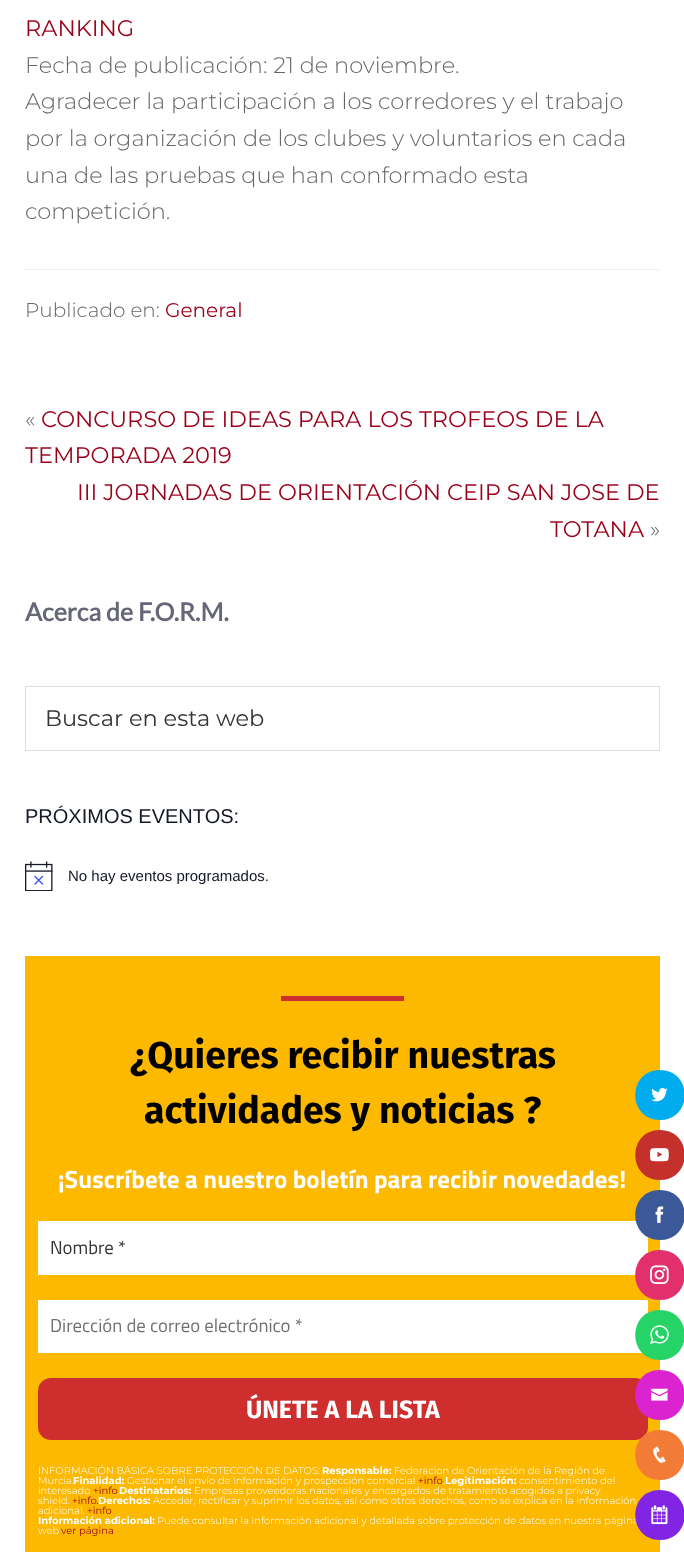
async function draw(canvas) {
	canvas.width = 684;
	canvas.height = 1552;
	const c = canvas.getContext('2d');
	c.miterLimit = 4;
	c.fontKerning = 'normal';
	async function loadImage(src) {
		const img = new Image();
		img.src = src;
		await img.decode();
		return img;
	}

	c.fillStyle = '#fff';
	c.fillRect(0, 0, 684, 1552);
	c.font = '22.5px Montserrat';
	c.fillStyle = '#99011a';
	c.fillText('RANKING', 25, 36);
	c.font = '300 22.5px Montserrat';
	c.fillStyle = '#666';
	for (const [text, x, y] of [
		['Fecha de publicación: 21 de noviembre.', 25, 73],
		['Agradecer la participación a los corredores y el trabajo', 25, 109],
		['por la organización de los clubes y voluntarios en cada', 25, 146],
		['una de las pruebas que han conformado esta', 25, 183],
		['competición.', 25, 219],
	]) {
		c.fillText(text, x, y);
	}
	c.fillStyle = '#eee';
	c.fillRect(25, 269, 635, 1);
	c.font = '300 20px Montserrat';
	c.fillStyle = '#666';
	c.fillText('Publicado en:', 25, 317);
	c.font = '20px Montserrat';
	c.fillStyle = '#99011a';
	c.fillText('General', 165, 317);
	c.font = '300 22.5px Montserrat';
	c.fillStyle = '#666';
	c.fillText('«', 25, 427);
	c.font = '22.5px Montserrat';
	c.fillStyle = '#99011a';
	for (const [text, x, y] of [
		['CONCURSO DE IDEAS PARA LOS TROFEOS DE LA', 41, 427],
		['TEMPORADA 2019', 25, 463],
		['III JORNADAS DE ORIENTACIÓN CEIP SAN JOSE DE', 77, 500],
		['TOTANA', 550, 537],
	]) {
		c.fillText(text, x, y);
	}
	c.font = '300 22.5px Montserrat';
	c.fillStyle = '#666';
	c.fillText('»', 650, 537);
	c.font = 'bold 25px Lato';
	c.fillStyle = '#666776';
	c.fillText('Acerca de F.O.R.M.', 25, 621);
	c.strokeStyle = '#ddd';
	c.strokeRect(25.5, 686.5, 634, 64);
	c.font = '22.5px Montserrat';
	c.fillStyle = '#333';
	c.fillText('Buscar en esta web', 45, 726);
	c.font = '20px Liberation Sans';
	c.fillStyle = '#141827';
	c.fillText('PRÓXIMOS EVENTOS:', 25, 823);
	c.drawImage(await loadImage('img1.png'), 25, 861, 28, 30);
	c.font = '15px Liberation Sans';
	c.fillText('No hay eventos programados.', 68, 881);
	c.fillStyle = '#fcb900';
	c.fillRect(25, 956, 635, 596);
	c.fillStyle = '#cf2e2e';
	c.fillRect(281, 996, 123, 5);
	c.font = 'bold 37.5px Fira Sans';
	c.fillStyle = '#000';
	c.fillText('¿Quieres recibir nuestras', 130, 1068);
	c.fillText('actividades y noticias ?', 144, 1123);
	c.font = 'bold 25px Titillium Web';
	c.fillStyle = '#fff';
	c.fillText('¡Suscríbete a nuestro boletín para recibir novedades!', 58, 1188);
	c.fillRect(38, 1221, 610, 54);
	c.font = '18.75px Titillium Web';
	c.fillStyle = '#333';
	c.fillText('Nombre *', 50, 1254);
	c.fillStyle = '#fff';
	c.fillRect(38, 1300, 610, 53);
	c.fillStyle = '#707070';
	c.fillText('Dirección de correo electrónico *', 50, 1332);
	c.fillStyle = '#cf2e2e';
	c.beginPath();
	c.roundRect(38, 1378, 610, 62, 13);
	c.fill();
	c.font = 'bold 25px Fira Sans';
	c.fillStyle = '#fff';
	c.fillText('ÚNETE A LA LISTA', 246, 1418);
	c.font = '300 10px Montserrat';
	c.fillText('INFORMACIÓN BÁSICA SOBRE PROTECCIÓN DE DATOS:', 38, 1474);
	c.font = 'bold 10px Montserrat';
	c.fillText('Responsable:', 322, 1474);
	c.font = '300 10px Montserrat';
	c.fillText('Federacion de Orientación de la Región de', 394, 1474);
	c.fillText('Murcia.', 38, 1484);
	c.font = 'bold 10px Montserrat';
	c.fillText('Finalidad:', 73, 1484);
	c.font = '300 10px Montserrat';
	c.fillText('Gestionar el envío de información y prospección comercial', 127, 1484);
	c.font = '10px Montserrat';
	c.fillStyle = '#99011a';
	c.fillText('+info', 418, 1484);
	c.font = '300 10px Montserrat';
	c.fillStyle = '#fff';
	c.fillText('.', 443, 1484);
	c.font = 'bold 10px Montserrat';
	c.fillText('Legitimación:', 445, 1484);
	c.font = '300 10px Montserrat';
	c.fillText('consentimiento del', 519, 1484);
	c.fillText('interesado', 38, 1494);
	c.font = '10px Montserrat';
	c.fillStyle = '#99011a';
	c.fillText('+info', 93, 1494);
	c.font = '300 10px Montserrat';
	c.fillStyle = '#fff';
	c.fillText('.', 117, 1494);
	c.font = 'bold 10px Montserrat';
	c.fillText('Destinatarios:', 119, 1494);
	c.font = '300 10px Montserrat';
	c.fillText('Empresas proveedoras nacionales y encargados de tratamiento acogidos a privacy', 194, 1494);
	c.fillText('shield.', 38, 1504);
	c.font = '10px Montserrat';
	c.fillStyle = '#99011a';
	c.fillText('+info.', 72, 1504);
	c.font = 'bold 10px Montserrat';
	c.fillStyle = '#fff';
	c.fillText('Derechos:', 98, 1504);
	c.font = '300 10px Montserrat';
	c.fillText('Acceder, rectificar y suprimir los datos, así como otros derechos, como se explica en la información', 153, 1504);
	c.fillText('adicional.', 38, 1514);
	c.font = '10px Montserrat';
	c.fillStyle = '#99011a';
	c.fillText('+info', 87, 1514);
	c.font = 'bold 10px Montserrat';
	c.fillStyle = '#fff';
	c.fillText('Información adicional:', 38, 1524);
	c.font = '300 10px Montserrat';
	c.fillText('Puede consultar la información adicional y detallada sobre protección de datos en nuestra página', 157, 1524);
	c.fillText('web', 38, 1534);
	c.font = '10px Montserrat';
	c.fillStyle = '#99011a';
	c.fillText('ver página', 61, 1534);
	c.fillStyle = '#00acee';
	c.beginPath();
	c.moveTo(660, 1070);
	c.bezierCurveTo(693, 1070, 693, 1120, 660, 1120);
	c.bezierCurveTo(627, 1120, 627, 1070, 660, 1070);
	c.closePath();
	c.fill();
	c.drawImage(await loadImage('img2.png'), 651, 1088, 17, 14);
	c.fillStyle = '#c4302b';
	c.beginPath();
	c.moveTo(660, 1130);
	c.bezierCurveTo(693, 1130, 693, 1180, 660, 1180);
	c.bezierCurveTo(627, 1180, 627, 1130, 660, 1130);
	c.closePath();
	c.fill();
	c.drawImage(await loadImage('img3.png'), 650, 1148, 19, 14);
	c.fillStyle = '#3b5998';
	c.beginPath();
	c.moveTo(660, 1190);
	c.bezierCurveTo(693, 1190, 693, 1240, 660, 1240);
	c.bezierCurveTo(627, 1240, 627, 1190, 660, 1190);
	c.closePath();
	c.fill();
	c.drawImage(await loadImage('img4.png'), 655, 1206, 9, 17);
	c.fillStyle = '#e1306c';
	c.beginPath();
	c.moveTo(660, 1250);
	c.bezierCurveTo(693, 1250, 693, 1300, 660, 1300);
	c.bezierCurveTo(627, 1300, 627, 1250, 660, 1250);
	c.closePath();
	c.fill();
	c.drawImage(await loadImage('img5.png'), 650, 1265, 19, 19);
	c.fillStyle = '#25d366';
	c.beginPath();
	c.moveTo(660, 1310);
	c.bezierCurveTo(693, 1310, 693, 1360, 660, 1360);
	c.bezierCurveTo(627, 1360, 627, 1310, 660, 1310);
	c.closePath();
	c.fill();
	c.drawImage(await loadImage('img6.png'), 650, 1325, 19, 19);
	c.fillStyle = '#db23cf';
	c.beginPath();
	c.moveTo(660, 1370);
	c.bezierCurveTo(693, 1370, 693, 1420, 660, 1420);
	c.bezierCurveTo(627, 1420, 627, 1370, 660, 1370);
	c.closePath();
	c.fill();
	c.drawImage(await loadImage('img7.png'), 651, 1388, 17, 13);
	c.fillStyle = '#f27c37';
	c.beginPath();
	c.moveTo(660, 1430);
	c.bezierCurveTo(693, 1430, 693, 1480, 660, 1480);
	c.bezierCurveTo(627, 1480, 627, 1430, 660, 1430);
	c.closePath();
	c.fill();
	c.drawImage(await loadImage('img8.png'), 653, 1446, 13, 17);
	c.fillStyle = '#8224e3';
	c.beginPath();
	c.moveTo(660, 1490);
	c.bezierCurveTo(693, 1490, 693, 1540, 660, 1540);
	c.bezierCurveTo(627, 1540, 627, 1490, 660, 1490);
	c.closePath();
	c.fill();
	c.drawImage(await loadImage('img9.png'), 651, 1505, 17, 20);
}

draw(document.querySelector('canvas'));
